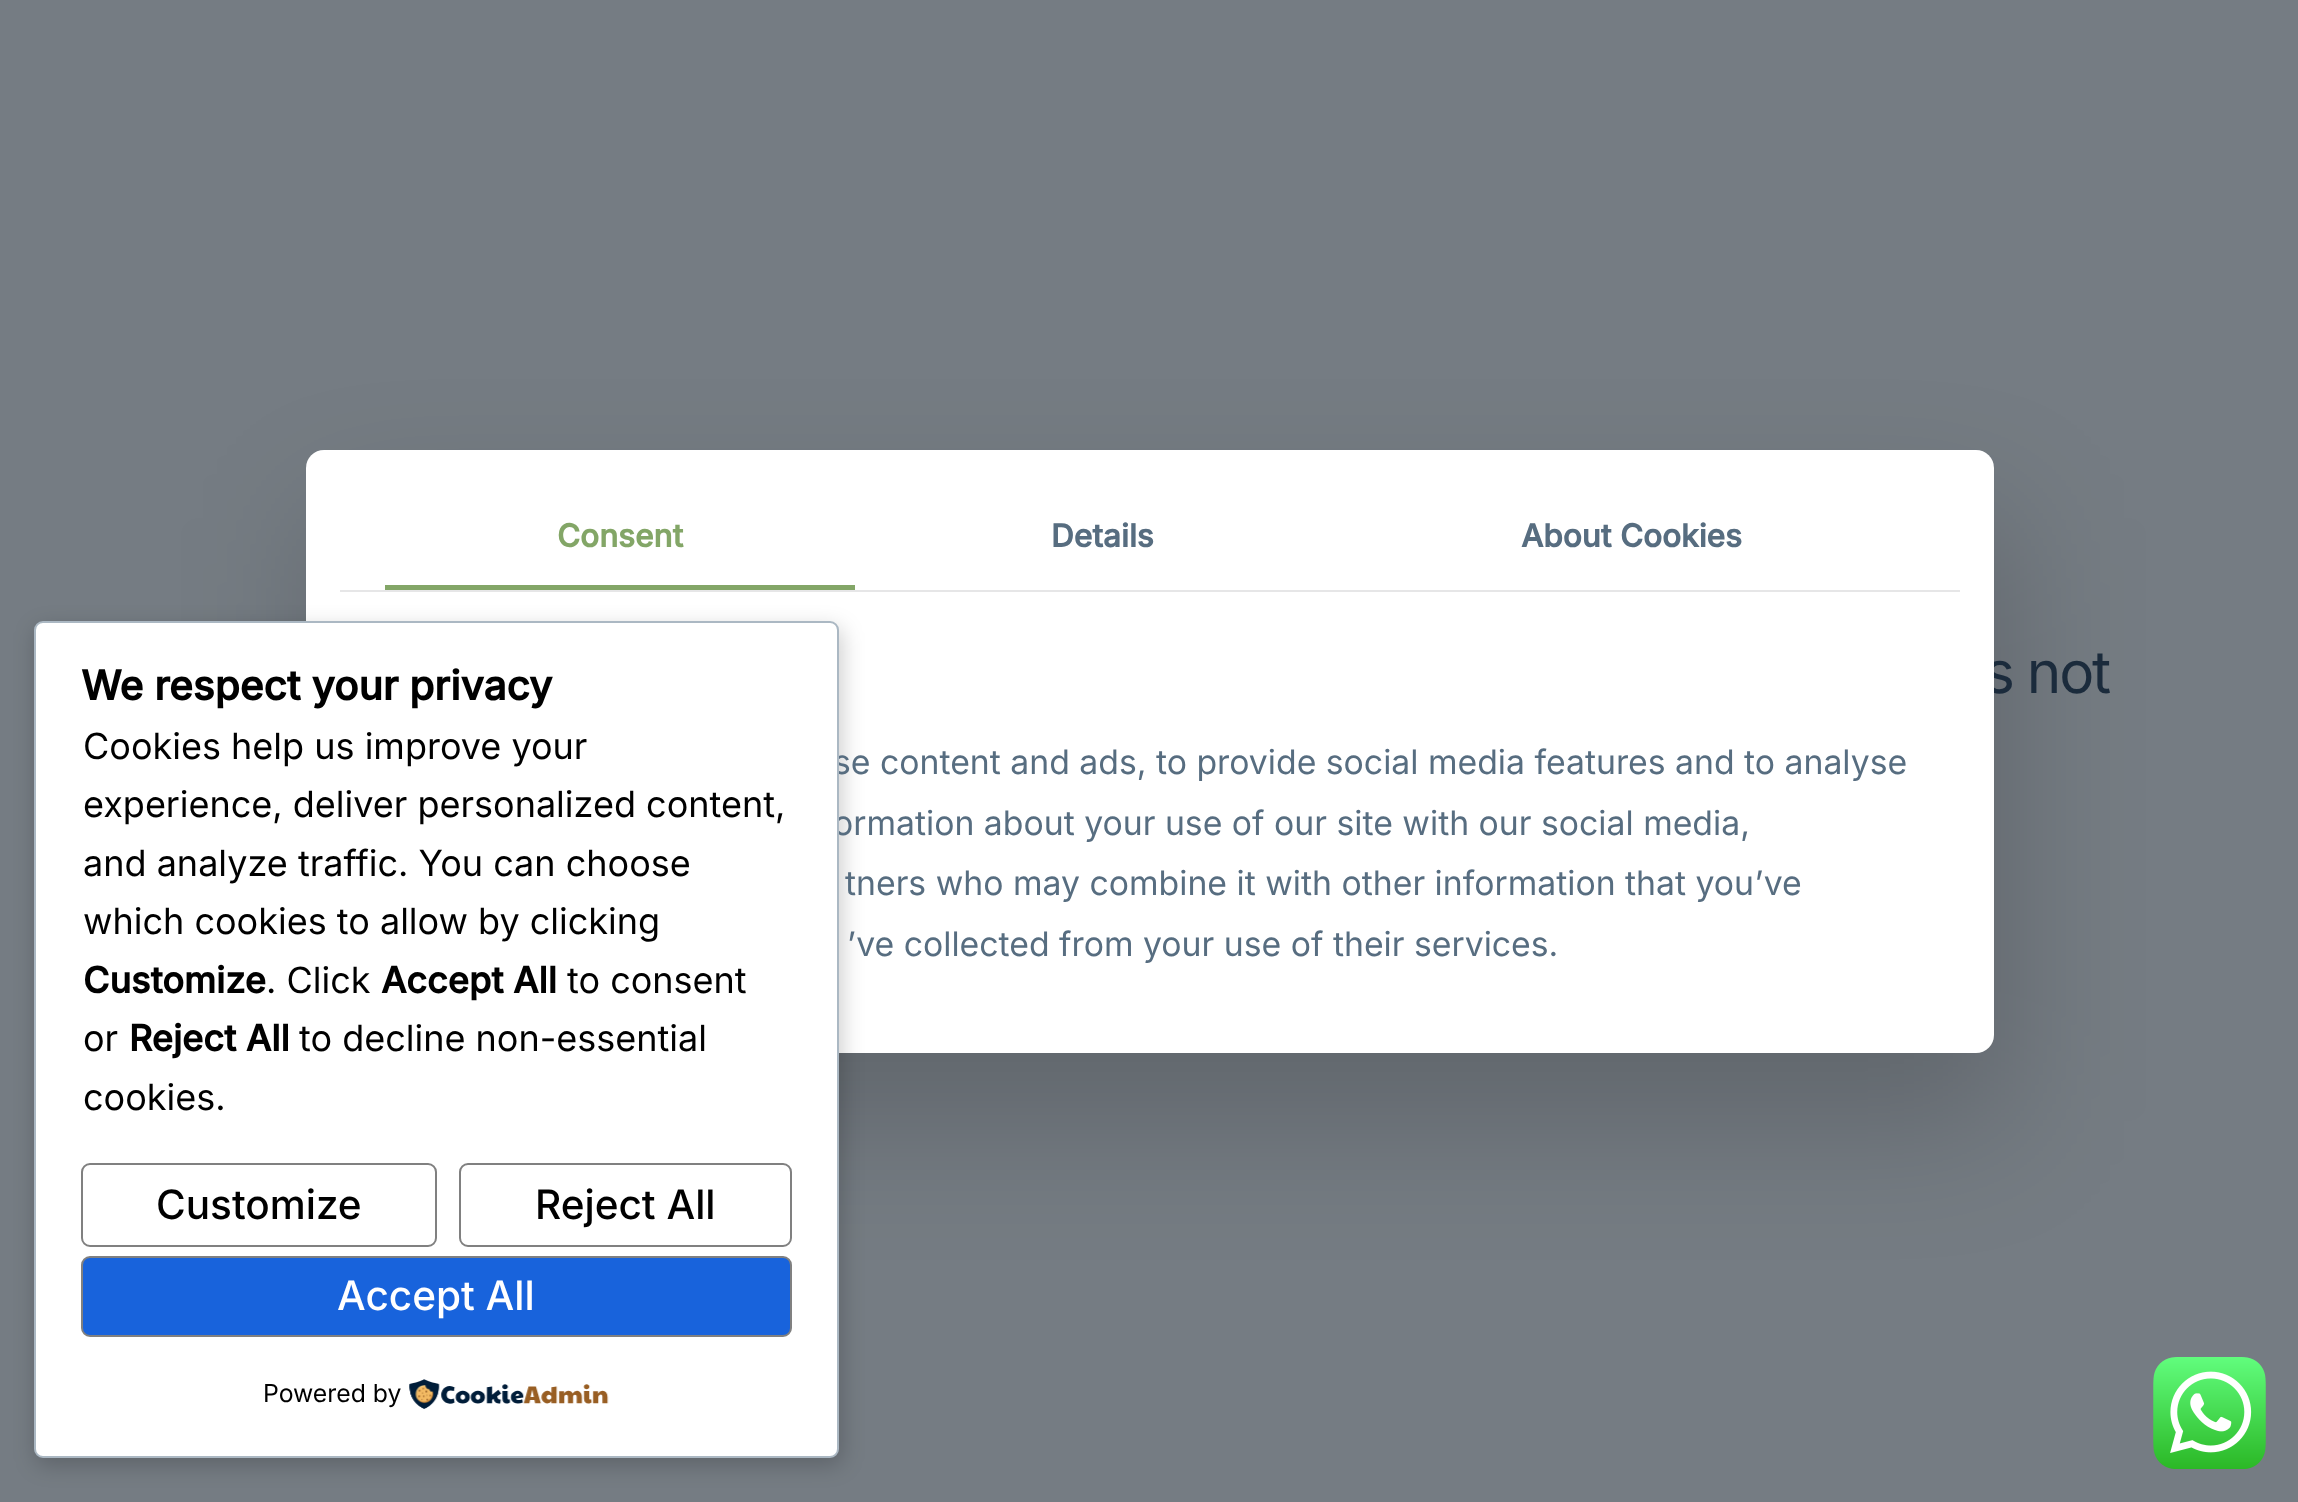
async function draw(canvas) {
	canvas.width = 2298;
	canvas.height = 1502;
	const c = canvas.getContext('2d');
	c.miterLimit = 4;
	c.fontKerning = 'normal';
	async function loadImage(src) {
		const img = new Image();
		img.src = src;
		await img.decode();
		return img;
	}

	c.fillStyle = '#757c83';
	c.fillRect(0, 0, 2298, 1502);
	c.fillStyle = '#0000002e';
	c.filter = 'blur(67.5px)';
	c.beginPath();
	c.roundRect(320, 518, 1687, 603, 18);
	c.fill();
	c.filter = 'none';
	c.letterSpacing = '-2.25px';
	c.font = '58.5px Inter';
	c.fillStyle = '#1b2b3c';
	c.fillText('s not', 1984, 693);
	c.fillStyle = '#fff';
	c.beginPath();
	c.roundRect(306, 450, 1688, 603, 18);
	c.fill();
	c.fillStyle = '#00000033';
	c.filter = 'blur(11px)';
	c.beginPath();
	c.roundRect(36, 628, 806, 837, 9);
	c.fill();
	c.filter = 'none';
	c.letterSpacing = '0px';
	c.font = '33.75px Inter';
	c.fillStyle = '#576d80';
	c.fillText('se content and ads, to provide social media features and to analyse', 833, 774);
	c.fillText('ormation about your use of our site with our social media,', 833, 835);
	c.fillStyle = '#fff';
	c.beginPath();
	c.roundRect(35, 622, 803, 835, 8);
	c.fill();
	c.strokeStyle = '#abb8c3';
	c.lineWidth = 2;
	c.stroke();
	c.font = 'bold 40.5px Inter';
	c.fillStyle = '#000';
	c.fillText('We respect your privacy', 81, 700);
	c.font = '36px Inter';
	for (const [text, x, y] of [
		['Cookies help us improve your', 83, 759],
		['experience, deliver personalized content,', 83, 817],
		['and analyze traffic. You can choose', 83, 876],
		['which cookies to allow by clicking', 83, 934],
	]) {
		c.fillText(text, x, y);
	}
	c.font = 'bold 36px Inter';
	c.fillText('Customize', 83, 993);
	c.font = '36px Inter';
	c.fillText('. Click', 266, 993);
	c.font = 'bold 36px Inter';
	c.fillText('Accept All', 381, 993);
	c.font = '36px Inter';
	c.fillText('to consent', 567, 993);
	c.fillText('or', 83, 1051);
	c.font = 'bold 36px Inter';
	c.fillText('Reject All', 129, 1051);
	c.font = '36px Inter';
	c.fillText('to decline non-essential', 299, 1051);
	c.fillText('cookies.', 83, 1110);
	c.beginPath();
	c.roundRect(82, 1164, 354, 82, 8);
	c.strokeStyle = '#808080';
	c.stroke();
	c.font = '500 40.5px Inter';
	c.fillText('Customize', 156, 1219);
	c.beginPath();
	c.roundRect(460, 1164, 331, 82, 8);
	c.stroke();
	c.fillText('Reject All', 535, 1219);
	c.fillStyle = '#1863dc';
	c.beginPath();
	c.roundRect(82, 1257, 709, 79, 8);
	c.fill();
	c.stroke();
	c.fillStyle = '#fff';
	c.fillText('Accept All', 337, 1310);
	c.font = '24.75px Inter';
	c.fillStyle = '#000';
	c.fillText('Powered by', 263, 1402);
	c.drawImage(await loadImage('img1.png'), 409, 1379, 200, 30);
	c.fillStyle = '#e6e6e7';
	c.fillRect(340, 590, 1620, 2);
	c.font = 'bold 31.5px Inter';
	c.fillStyle = '#83a667';
	c.fillText('Consent', 557, 547);
	c.fillRect(385, 585, 470, 5);
	c.fillStyle = '#576d80';
	c.fillText('Details', 1051, 547);
	c.fillText('About Cookies', 1521, 547);
	c.font = '33.75px Inter';
	c.fillText('tners who may combine it with other information that you’ve', 845, 895);
	c.fillText('’ve collected from your use of their services.', 847, 956);
	c.drawImage(await loadImage('img2.png'), 2153, 1357, 113, 112);
}

draw(document.querySelector('canvas'));
